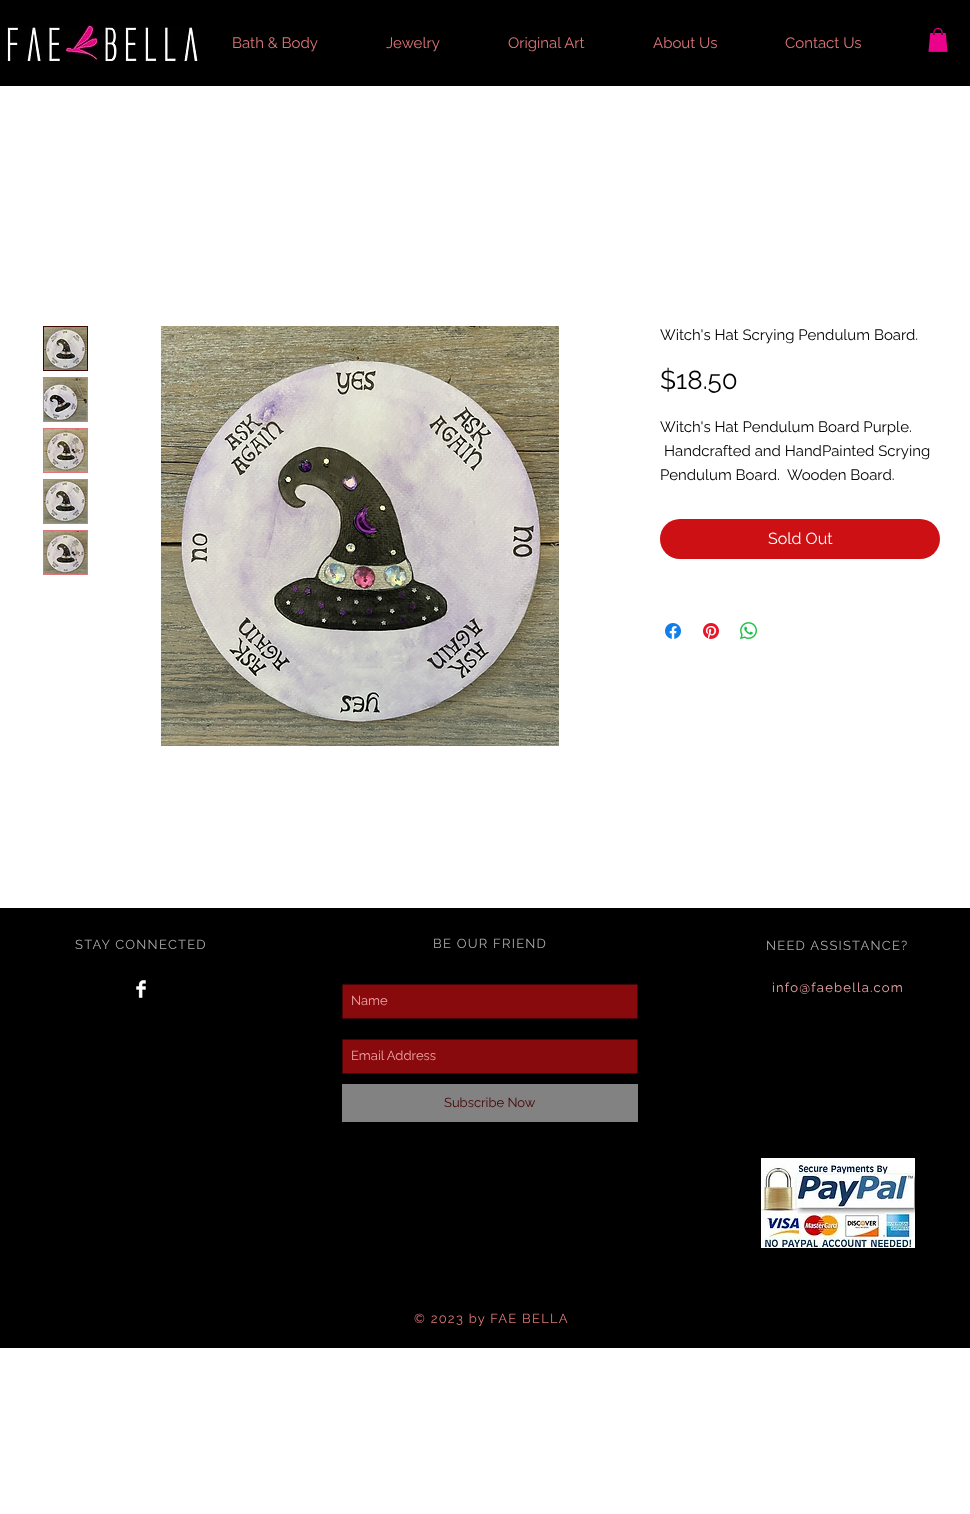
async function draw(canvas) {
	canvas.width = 970;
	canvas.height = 1514;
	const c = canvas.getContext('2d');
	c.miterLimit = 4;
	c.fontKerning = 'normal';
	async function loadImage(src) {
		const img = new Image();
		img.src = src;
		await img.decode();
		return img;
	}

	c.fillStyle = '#fff';
	c.fillRect(0, 0, 970, 1514);
	c.fillStyle = '#000';
	c.fillRect(0, 0, 970, 86);
	c.drawImage(await loadImage('img1.png'), 5, 22, 195, 40);
	c.font = '15px Raleway';
	c.fillStyle = '#dd7779';
	for (const [text, x, y] of [
		['Bath & Body', 232, 48],
		['Jewelry', 386, 48],
		['Original Art', 508, 48],
		['About Us', 653, 48],
		['Contact Us', 785, 48],
	]) {
		c.fillText(text, x, y);
	}
	c.drawImage(await loadImage('img2.png'), 928, 28, 20, 24);
	c.strokeStyle = '#440506';
	c.strokeRect(43.5, 326.5, 44, 44);
	c.drawImage(await loadImage('img3.png'), 44, 327, 43, 43);
	c.strokeStyle = '#dd7779';
	c.strokeRect(43.5, 377.5, 44, 44);
	c.drawImage(await loadImage('img4.png'), 44, 378, 43, 43);
	c.strokeRect(43.5, 428.5, 44, 44);
	c.drawImage(await loadImage('img5.png'), 44, 429, 43, 43);
	c.strokeRect(43.5, 479.5, 44, 44);
	c.drawImage(await loadImage('img6.png'), 44, 480, 43, 43);
	c.strokeRect(43.5, 530.5, 44, 44);
	c.drawImage(await loadImage('img7.png'), 44, 531, 43, 43);
	c.drawImage(await loadImage('img8.png'), 161, 326, 398, 420);
	c.fillStyle = '#000';
	c.fillText('Witch\'s Hat Scrying Pendulum Board.', 660, 340);
	c.font = '26px Raleway';
	c.fillText('$18.50', 660, 389);
	c.font = '15px Raleway';
	for (const [text, x, y] of [
		['Witch\'s Hat Pendulum Board Purple.', 660, 432],
		['Handcrafted and HandPainted Scrying', 664, 456],
		['Pendulum Board.  Wooden Board.', 660, 480],
	]) {
		c.fillText(text, x, y);
	}
	c.fillStyle = '#cc1013';
	c.beginPath();
	c.roundRect(660, 519, 280, 40, 20);
	c.fill();
	c.font = '16px Raleway';
	c.fillStyle = '#fff';
	c.fillText('Sold Out', 768, 544);
	c.drawImage(await loadImage('img9.png'), 665, 623, 16, 16);
	c.drawImage(await loadImage('img10.png'), 703, 623, 16, 16);
	c.drawImage(await loadImage('img11.png'), 740, 622, 17, 17);
	c.fillStyle = '#000';
	c.fillRect(0, 908, 970, 440);
	c.letterSpacing = '1.25px';
	c.font = '13px Raleway';
	c.fillStyle = '#ababab';
	for (const [text, x, y] of [
		['STAY CONNECTED', 75, 949],
		['BE OUR FRIEND', 433, 948],
		['NEED ASSISTANCE?', 766, 950],
	]) {
		c.fillText(text, x, y);
	}
	c.fillStyle = '#eda5a6';
	c.fillText('info@faebella.com', 772, 992);
	c.drawImage(await loadImage('img12.png'), 136, 980, 10, 18);
	c.fillStyle = '#880a0c';
	c.beginPath();
	c.rect(342.5, 984.5, 295, 34);
	c.fill();
	c.strokeStyle = '#440506';
	c.stroke();
	c.letterSpacing = '0px';
	c.fillStyle = '#eda5a6';
	c.fillText('Name', 351, 1005);
	c.fillStyle = '#880a0c';
	c.beginPath();
	c.rect(342.5, 1039.5, 295, 34);
	c.fill();
	c.stroke();
	c.fillStyle = '#eda5a6';
	c.fillText('Email Address', 351, 1060);
	c.fillStyle = '#828282';
	c.fillRect(342, 1084, 296, 38);
	c.fillStyle = '#440506';
	c.fillText('Subscribe Now', 444, 1107);
	c.drawImage(await loadImage('img13.png'), 761, 1158, 154, 90);
	c.letterSpacing = '1.25px';
	c.fillStyle = '#dd7779';
	c.fillText('© 2023 by FAE BELLA', 414, 1323);
}

draw(document.querySelector('canvas'));
